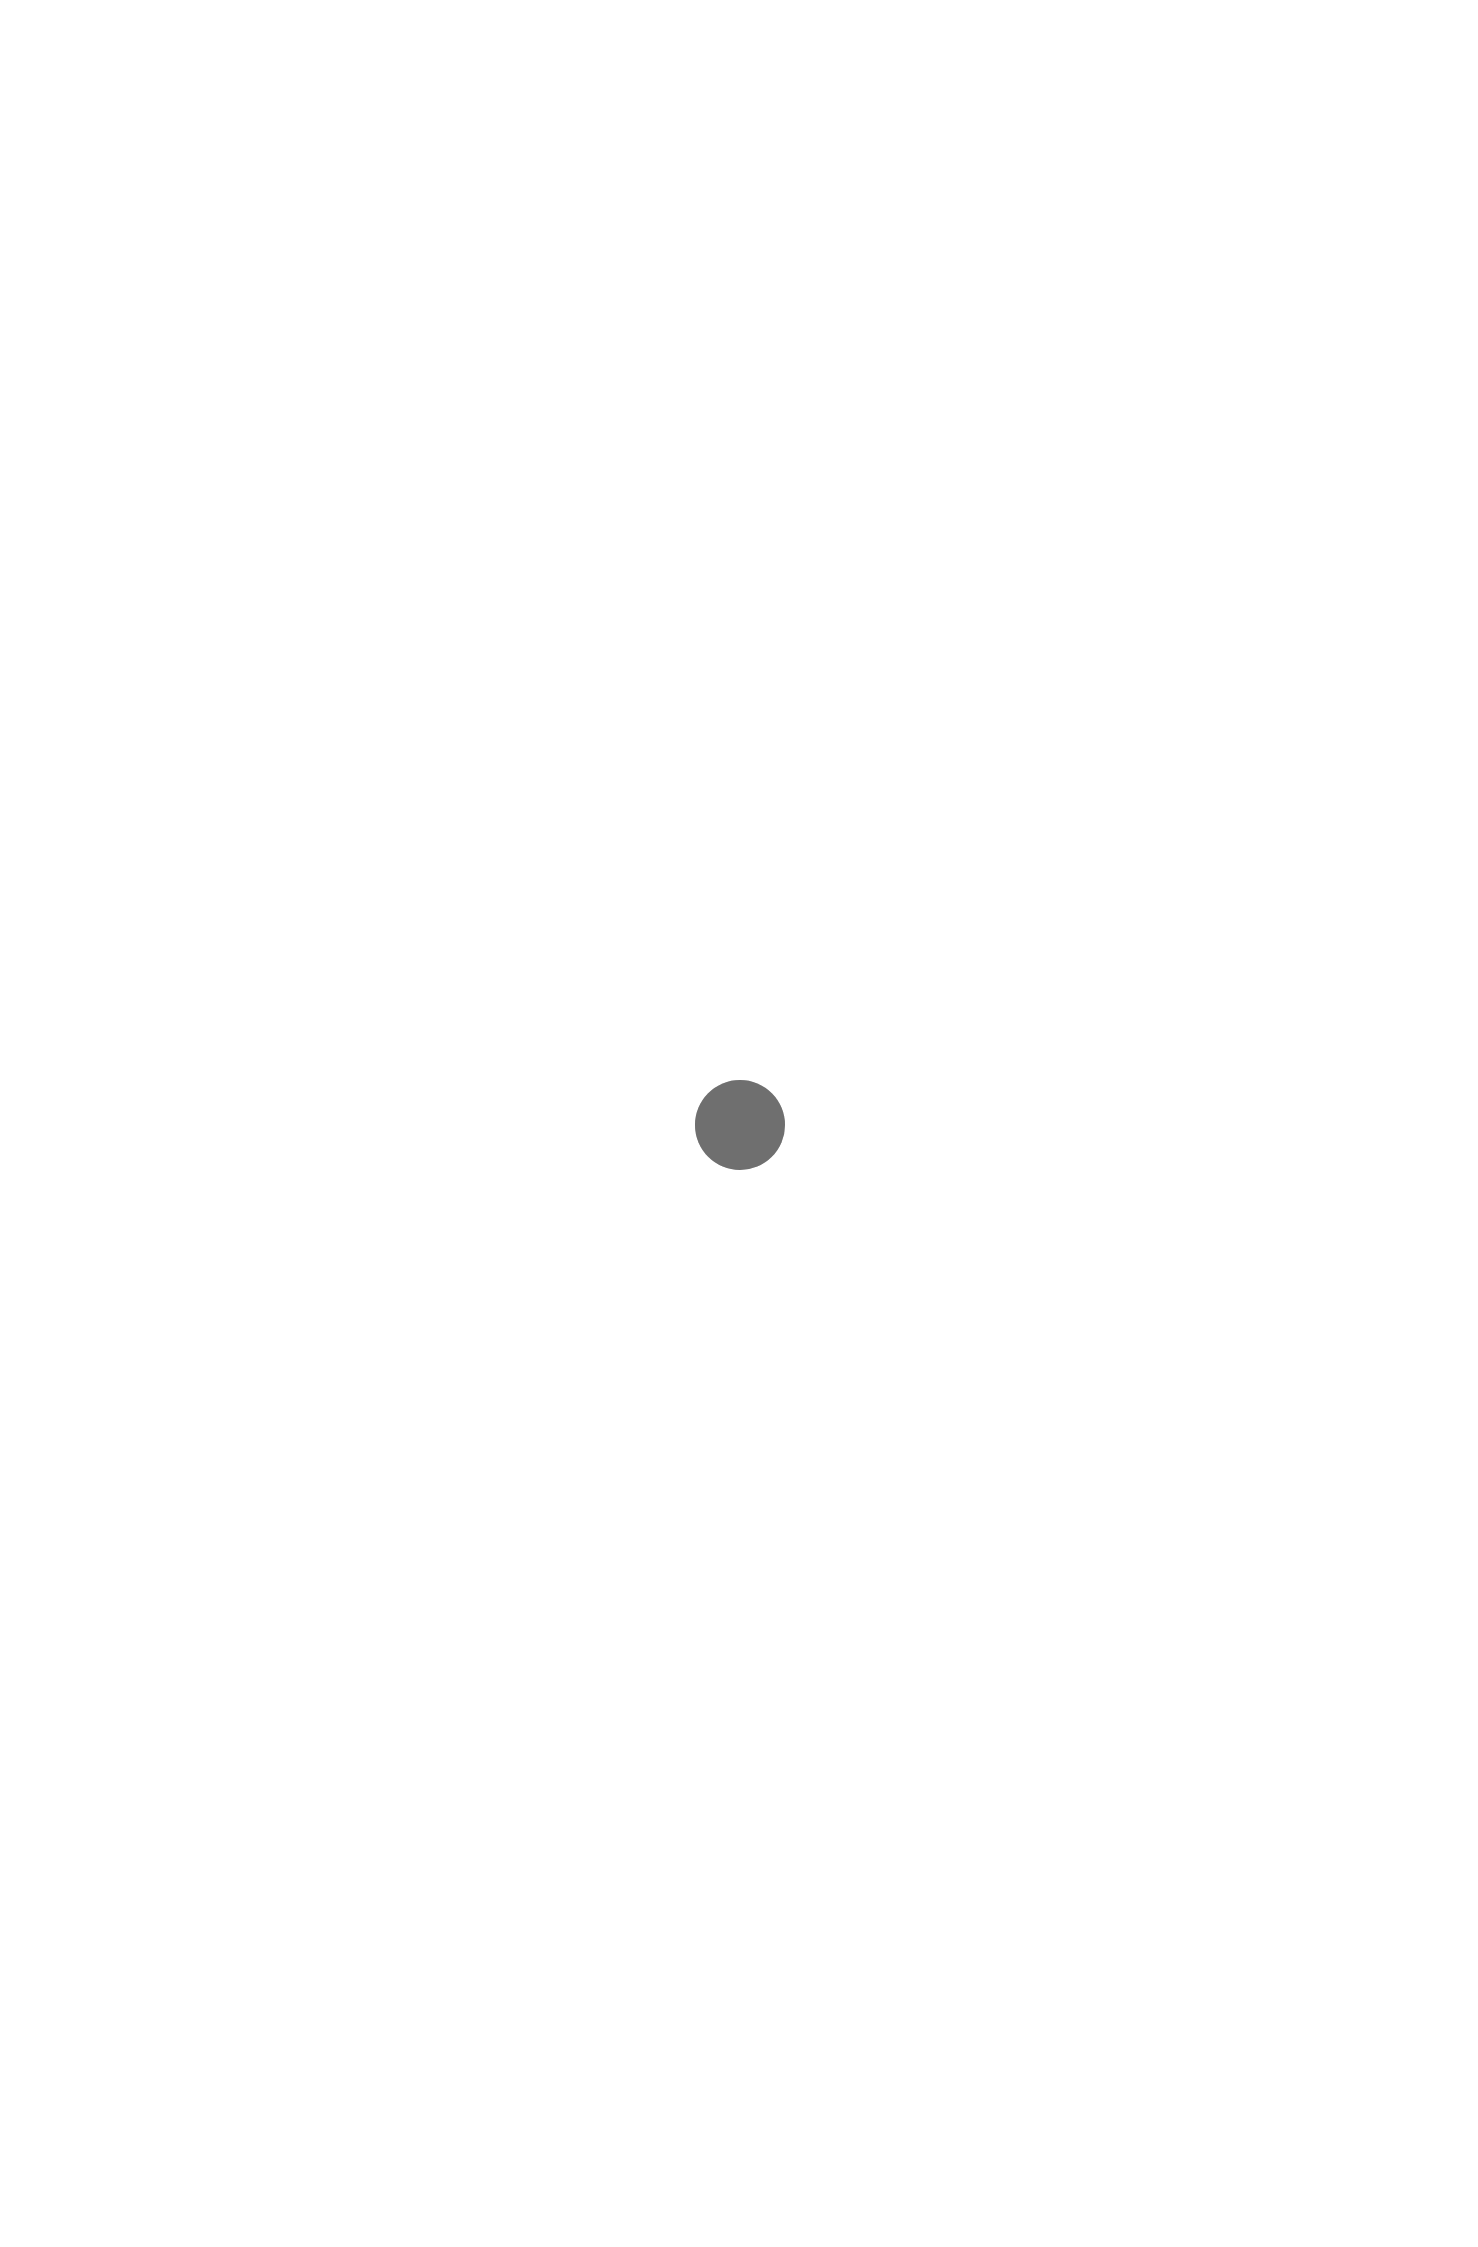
async function draw(canvas) {
	canvas.width = 1478;
	canvas.height = 2247;
	const c = canvas.getContext('2d');
	c.miterLimit = 4;
	c.fontKerning = 'normal';

	c.fillStyle = '#fff';
	c.fillRect(0, 0, 1478, 2247);
	c.fillStyle = '#989898';
	c.beginPath();
	c.arc(740, 1125, 45, 0, 2 * Math.PI);
	c.fill();
	c.fillStyle = '#54545499';
	c.beginPath();
	c.arc(740, 1125, 45, 0, 2 * Math.PI);
	c.fill();
}

draw(document.querySelector('canvas'));
